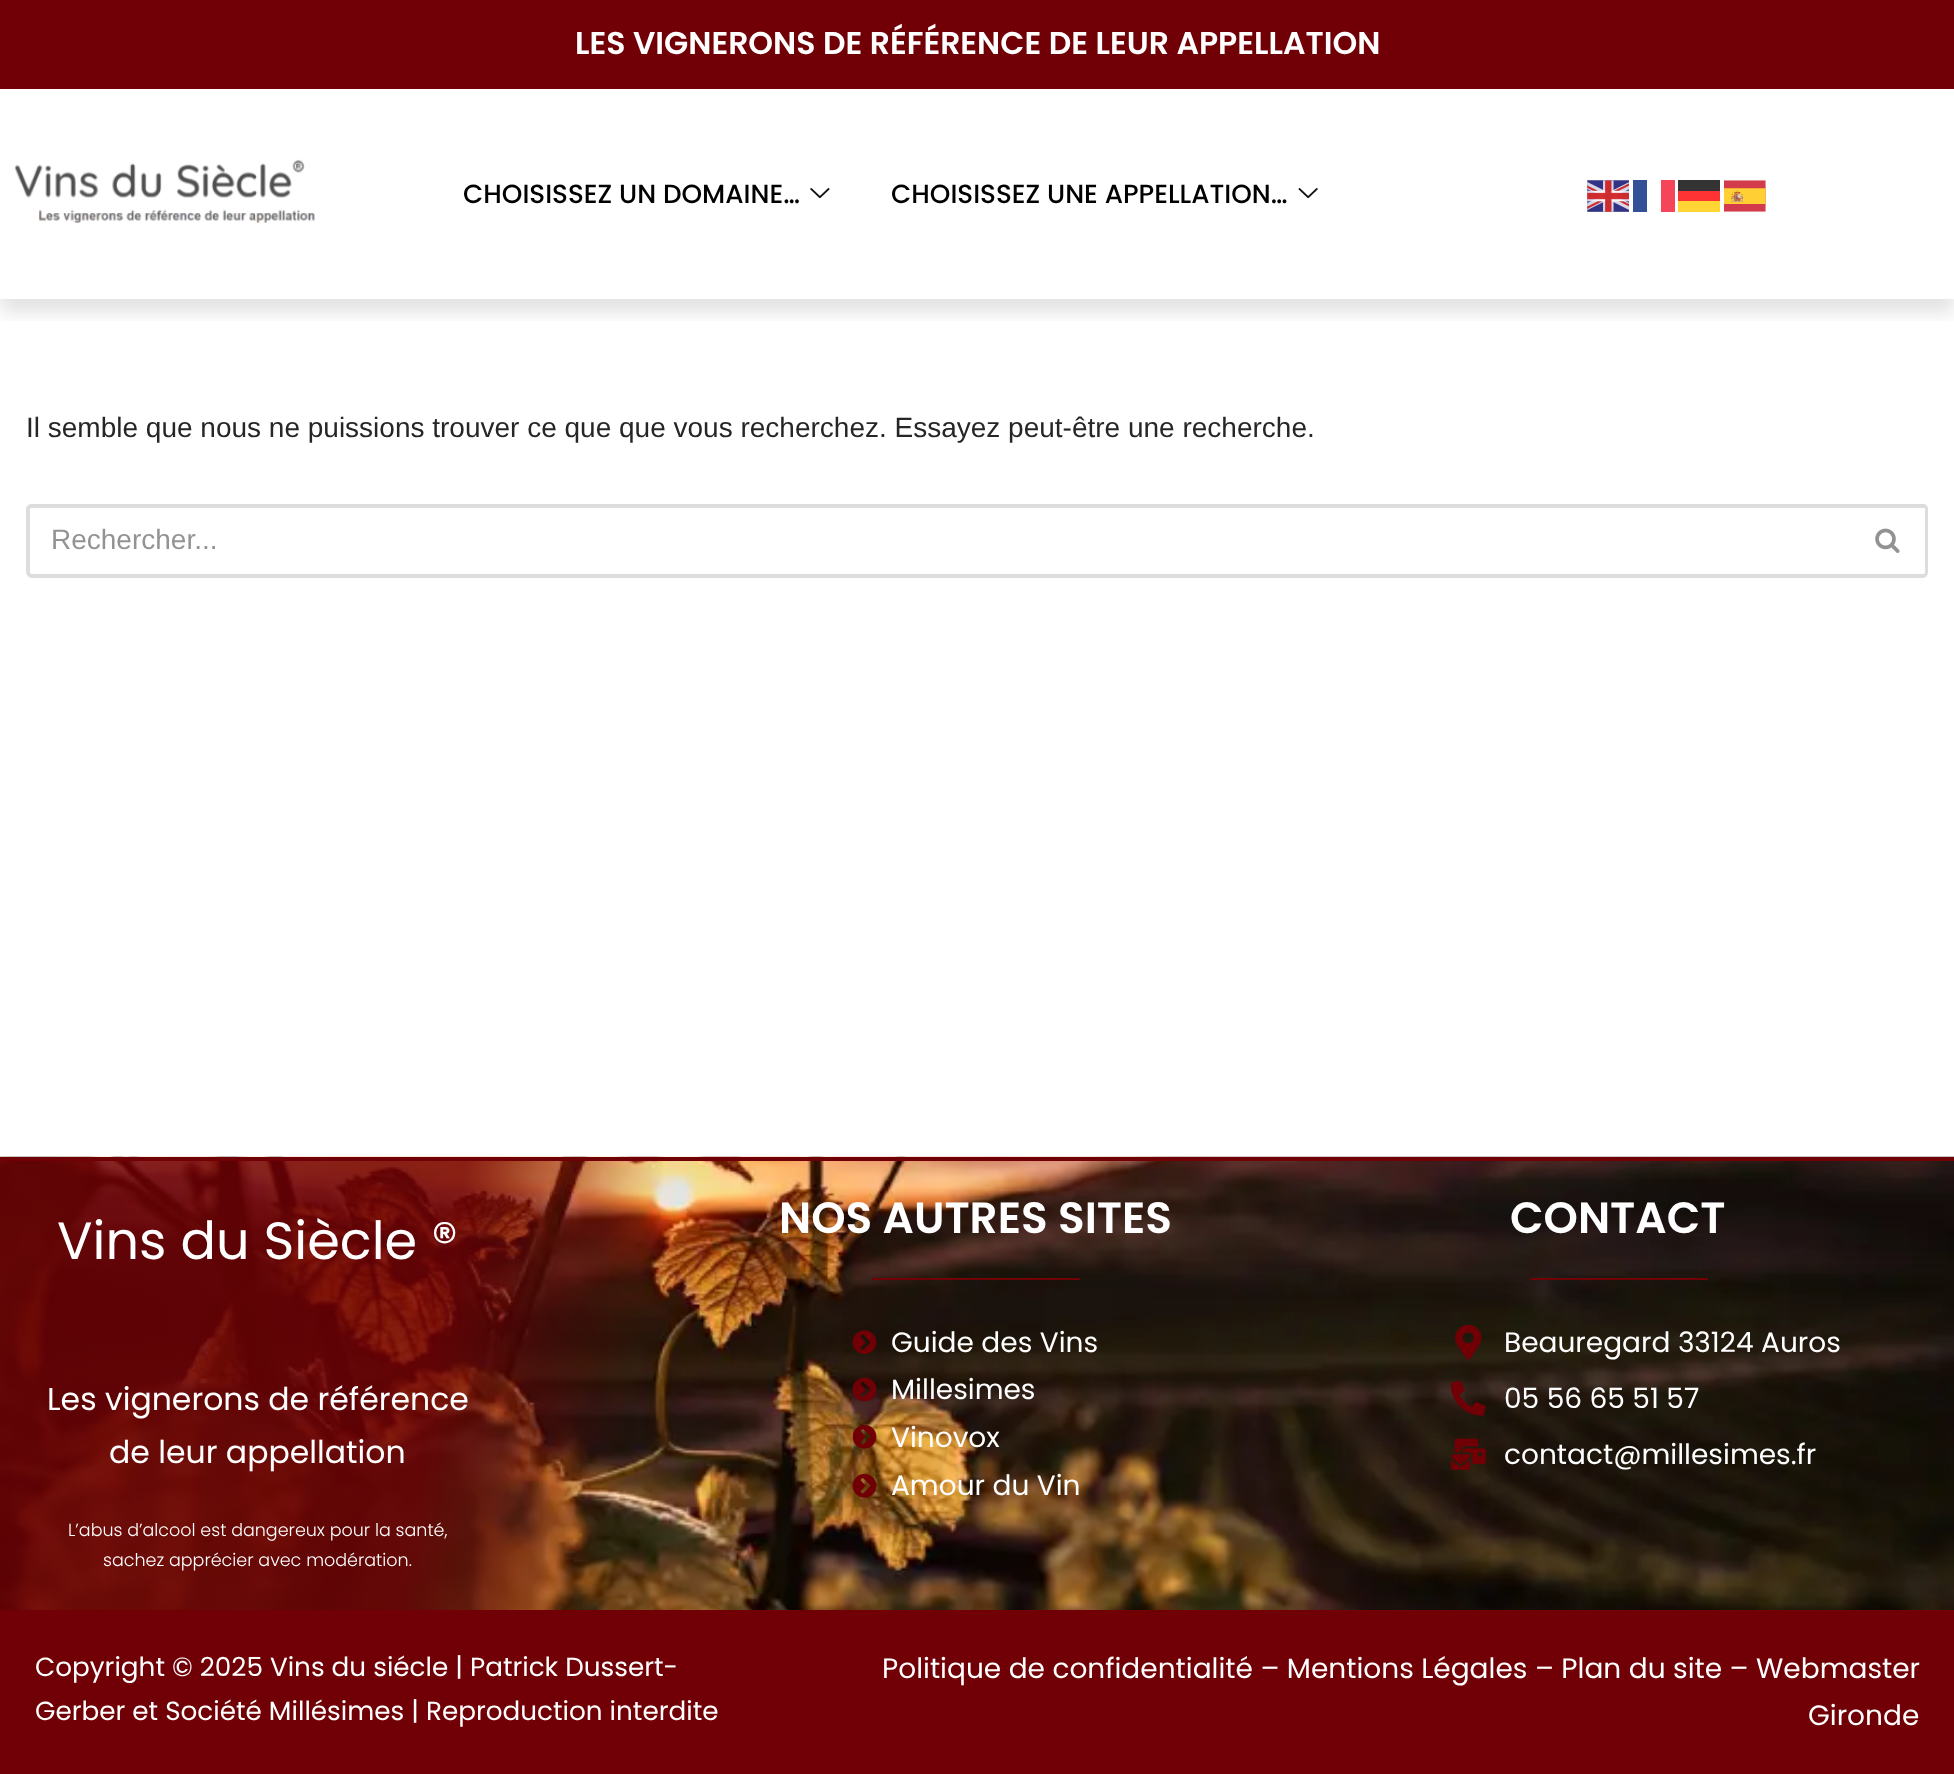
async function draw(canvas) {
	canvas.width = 1954;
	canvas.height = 1774;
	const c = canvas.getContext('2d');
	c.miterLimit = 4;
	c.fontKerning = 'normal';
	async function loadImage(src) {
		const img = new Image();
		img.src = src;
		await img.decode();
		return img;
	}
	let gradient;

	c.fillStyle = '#fff';
	c.fillRect(0, 0, 1954, 1774);
	c.fillStyle = '#700005';
	c.fillRect(0, 0, 1954, 89);
	c.font = '600 31.5px Poppins';
	c.fillStyle = '#fff';
	c.fillText('LES VIGNERONS DE RÉFÉRENCE DE LEUR APPELLATION', 575, 54);
	c.save();
	c.beginPath();
	c.rect(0, 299, 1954, 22);
	c.clip();
	c.fillStyle = '#0000001c';
	c.filter = 'blur(9px)';
	c.beginPath();
	c.rect(0, 103, 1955, 210);
	c.fill();
	c.filter = 'none';
	c.restore();
	c.drawImage(await loadImage('img1.png'), 14, 159, 301, 64);
	c.font = '500 26.25px Poppins';
	c.fillStyle = '#000';
	c.fillText('CHOISISSEZ UN DOMAINE…', 463, 203);
	c.drawImage(await loadImage('img2.png'), 810, 188, 20, 11);
	c.fillText('CHOISISSEZ UNE APPELLATION…', 891, 203);
	c.drawImage(await loadImage('img3.png'), 1298, 188, 20, 11);
	c.drawImage(await loadImage('img4.png'), 1587, 180, 42, 32);
	for (const [x, y, w, h, color] of [
		[1633, 180, 14, 32, '#335199'],
		[1661, 180, 14, 32, '#f54659'],
		[1678, 180, 42, 11, '#333'],
	]) {
		c.fillStyle = color;
		c.fillRect(x, y, w, h);
	}
	c.drawImage(await loadImage('img5.png'), 1724, 180, 42, 32);
	c.fillStyle = '#f33';
	c.fillRect(1678, 191, 42, 10);
	c.fillStyle = '#ffd633';
	c.fillRect(1678, 201, 42, 11);
	c.font = '28px Liberation Sans';
	c.fillStyle = '#272626';
	c.fillText('Il semble que nous ne puissions trouver ce que que vous recherchez. Essayez peut-être une recherche.', 26, 437);
	c.fillStyle = '#ddd';
	c.beginPath();
	c.moveTo(32, 504);
	c.lineTo(1850, 504);
	c.lineTo(1850, 578);
	c.lineTo(32, 578);
	c.bezierCurveTo(29, 578, 26, 575, 26, 572);
	c.lineTo(26, 509);
	c.bezierCurveTo(26, 506, 29, 504, 32, 504);
	c.closePath();
	c.moveTo(32, 508);
	c.lineTo(1850, 508);
	c.lineTo(1850, 574);
	c.lineTo(32, 574);
	c.bezierCurveTo(31, 574, 30, 573, 30, 572);
	c.lineTo(30, 509);
	c.bezierCurveTo(30, 508, 31, 508, 32, 508);
	c.closePath();
	c.fill('evenodd');
	c.fillStyle = '#939393';
	c.fillText('Rechercher...', 51, 549);
	c.fillStyle = '#ddd';
	c.beginPath();
	c.moveTo(1850, 504);
	c.lineTo(1923, 504);
	c.bezierCurveTo(1926, 504, 1928, 506, 1928, 509);
	c.lineTo(1928, 572);
	c.bezierCurveTo(1928, 575, 1926, 578, 1923, 578);
	c.lineTo(1850, 578);
	c.closePath();
	c.moveTo(1850, 508);
	c.lineTo(1923, 508);
	c.bezierCurveTo(1924, 508, 1925, 508, 1925, 509);
	c.lineTo(1925, 572);
	c.bezierCurveTo(1925, 573, 1924, 574, 1923, 574);
	c.lineTo(1850, 574);
	c.closePath();
	c.fill('evenodd');
	c.drawImage(await loadImage('img6.png'), 1875, 528, 25, 25);
	c.drawImage(await loadImage('img7.png'), 0, 1156, 1954, 454);
	c.fillStyle = '#700005';
	c.fillRect(0, 1157, 1954, 4);
	gradient = c.createLinearGradient(-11, 1229, 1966, 1542);
	gradient.addColorStop(0.23, '#700005cf');
	gradient.addColorStop(0.33, '#70000500');
	c.fillStyle = gradient;
	c.fillRect(0, 1161, 663, 449);
	c.font = '52.5px Poppins';
	c.fillStyle = '#fff';
	c.fillText('Vins du Siècle ®', 57, 1259);
	c.font = '31.5px Poppins';
	c.fillText('Les vignerons de référence', 47, 1410);
	c.fillText('de leur appellation', 109, 1463);
	c.font = '300 17.5px Poppins';
	c.fillText('L’abus d’alcool est dangereux pour la santé,', 68, 1536);
	c.fillText('sachez apprécier avec modération.', 103, 1566);
	c.font = '600 43.75px Poppins';
	c.fillText('NOS AUTRES SITES', 779, 1233);
	c.fillStyle = '#700005';
	c.fillRect(872, 1278, 208, 2);
	c.drawImage(await loadImage('img8.png'), 852, 1330, 25, 25);
	c.font = '28px Poppins';
	c.fillStyle = '#fff';
	c.fillText('Guide des Vins', 891, 1352);
	c.drawImage(await loadImage('img9.png'), 852, 1377, 25, 25);
	c.fillText('Millesimes', 891, 1399);
	c.drawImage(await loadImage('img10.png'), 852, 1425, 25, 24);
	c.fillText('Vinovox', 891, 1447);
	c.drawImage(await loadImage('img11.png'), 852, 1474, 25, 24);
	c.fillText('Amour du Vin', 891, 1495);
	c.font = '600 43.75px Poppins';
	c.fillText('CONTACT', 1510, 1233);
	c.fillStyle = '#700005';
	c.fillRect(1530, 1278, 178, 2);
	c.drawImage(await loadImage('img12.png'), 1455, 1325, 27, 35);
	c.font = '28px Poppins';
	c.fillStyle = '#fff';
	c.fillText('Beauregard 33124 Auros', 1504, 1352);
	c.drawImage(await loadImage('img13.png'), 1451, 1381, 35, 35);
	c.fillText('05 56 65 51 57', 1504, 1408);
	c.drawImage(await loadImage('img14.png'), 1451, 1438, 35, 32);
	c.fillText('contact@millesimes.fr', 1504, 1464);
	c.fillStyle = '#700005';
	c.fillRect(0, 1610, 1954, 164);
	c.font = '26.25px Poppins';
	c.fillStyle = '#fff';
	c.fillText('Copyright © 2025 Vins du siécle | Patrick Dussert-', 35, 1676);
	c.fillText('Gerber et Société Millésimes | Reproduction interdite', 35, 1720);
	c.font = '28px Poppins';
	c.fillText('Politique de confidentialité – Mentions Légales – Plan du site – Webmaster', 882, 1678);
	c.fillText('Gironde', 1808, 1725);
}

draw(document.querySelector('canvas'));
